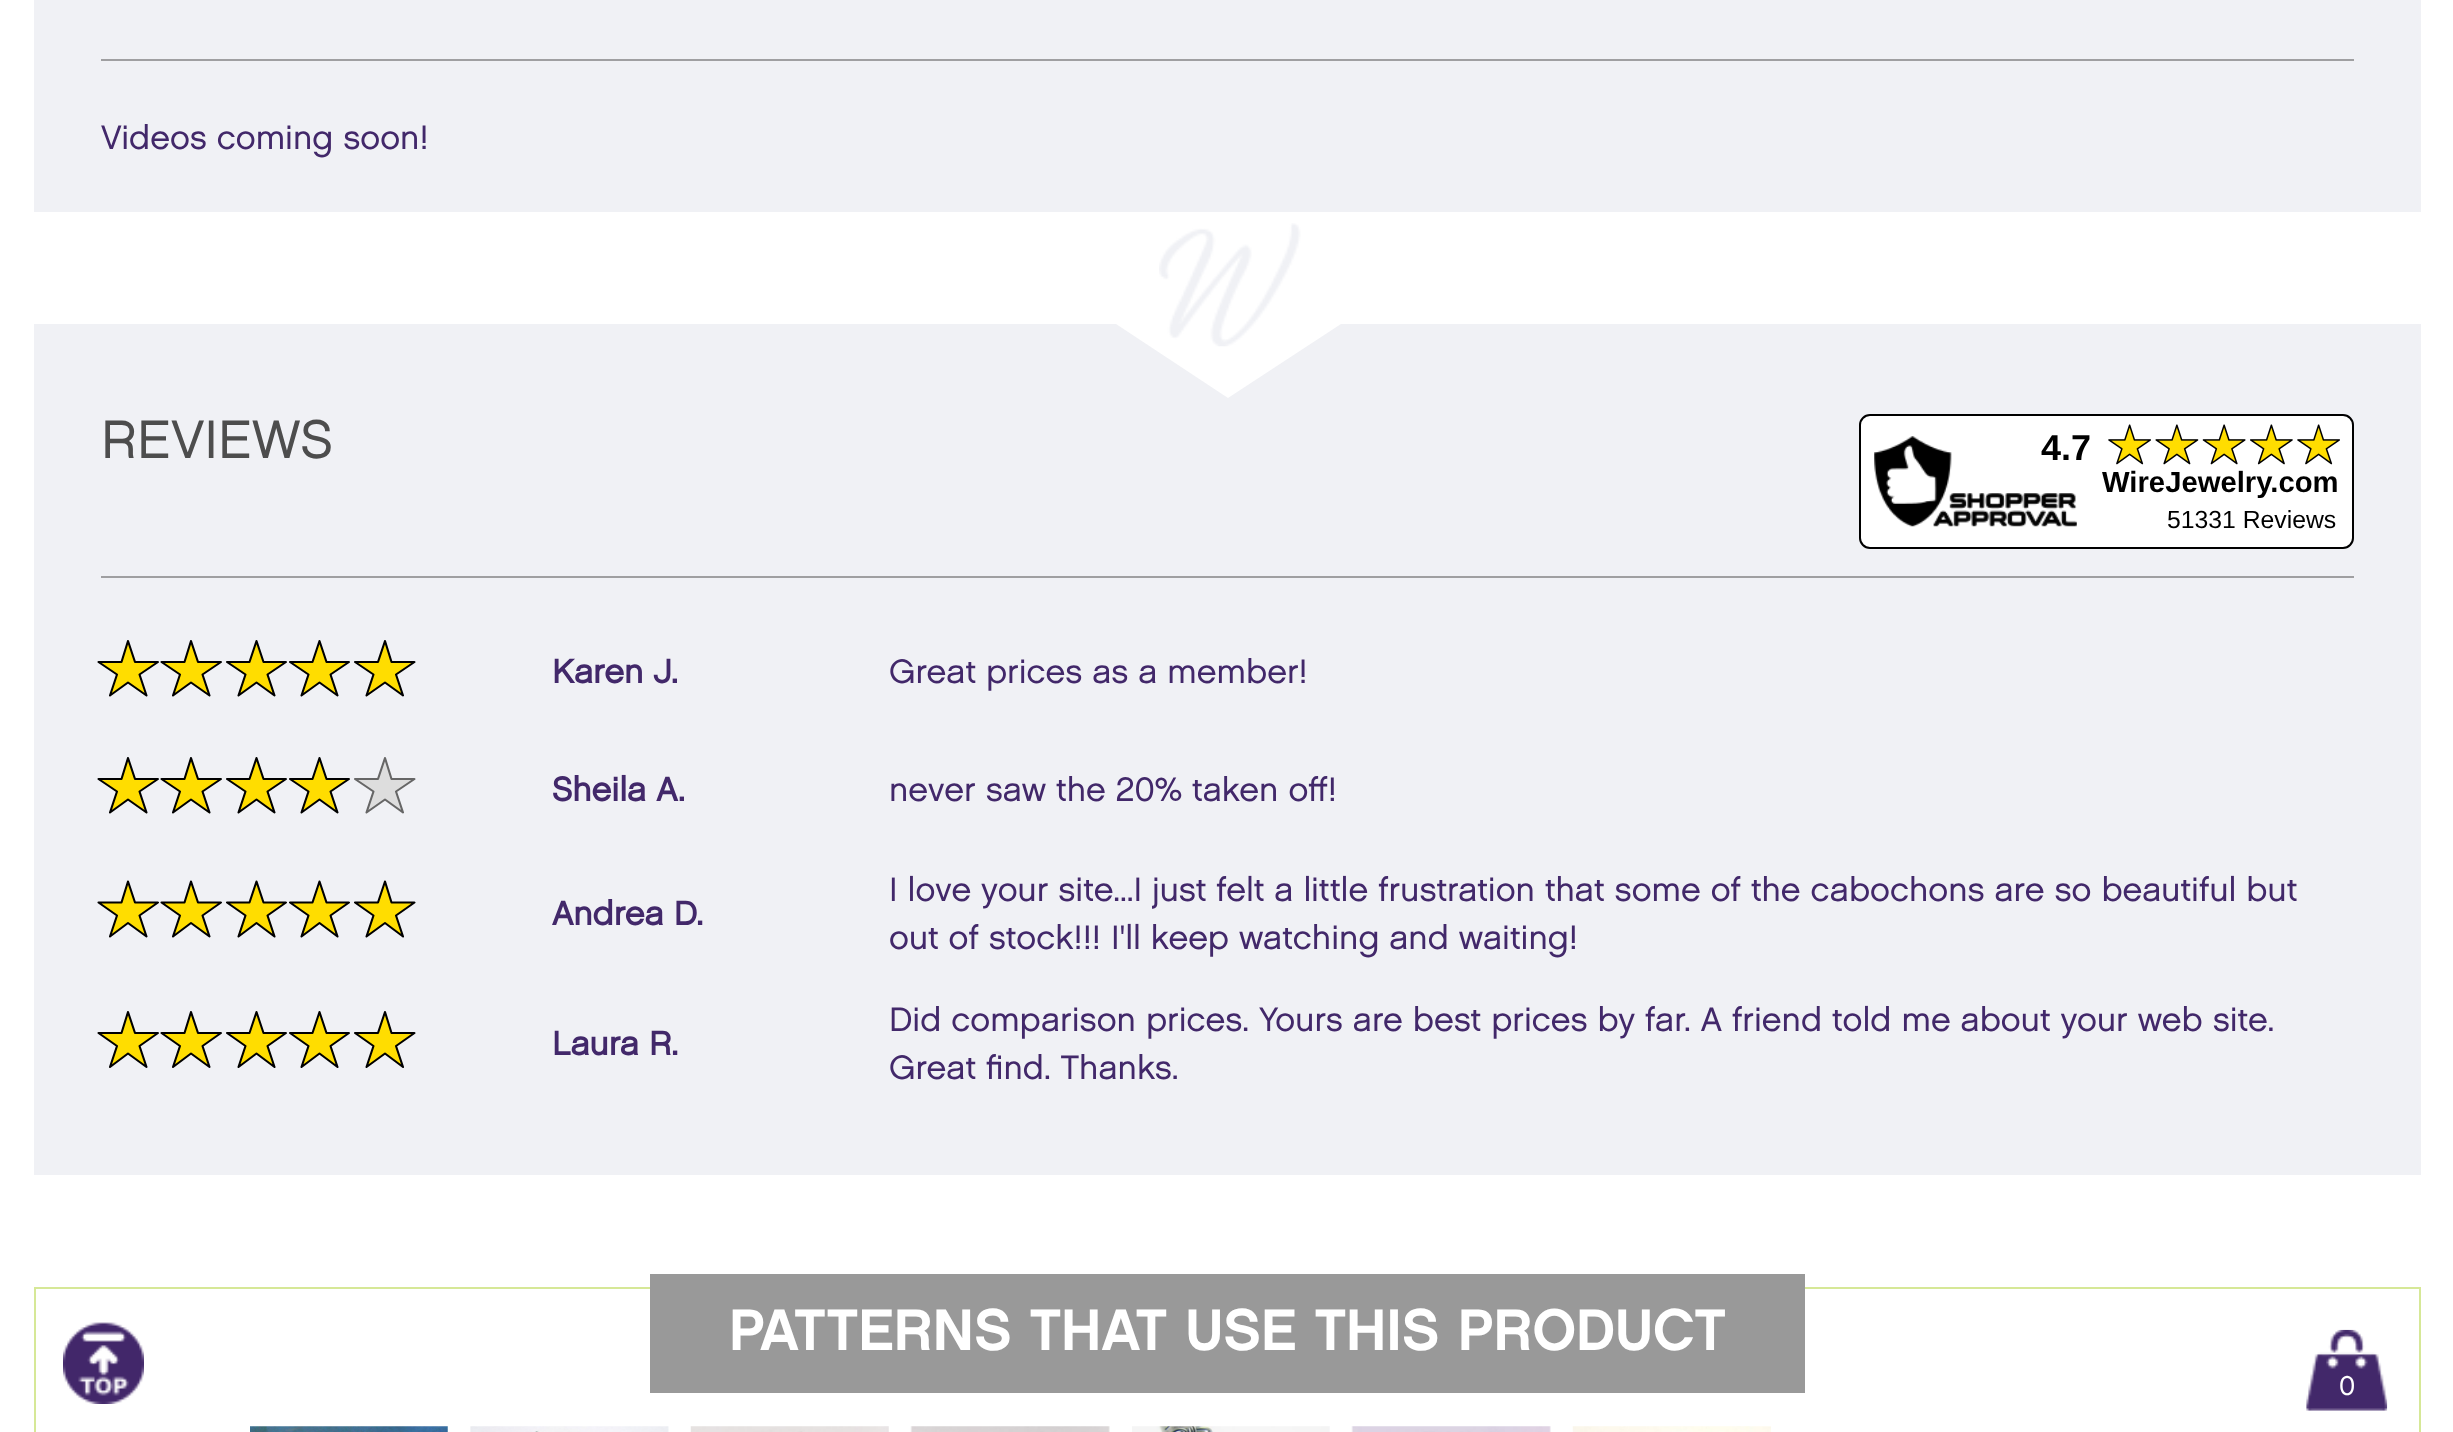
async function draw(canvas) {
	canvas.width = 2453;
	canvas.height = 1432;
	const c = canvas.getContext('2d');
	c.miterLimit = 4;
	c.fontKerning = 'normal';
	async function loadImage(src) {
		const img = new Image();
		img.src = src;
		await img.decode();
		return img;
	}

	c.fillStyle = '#fff';
	c.fillRect(0, 0, 2453, 1432);
	c.fillStyle = '#f0f1f5';
	c.fillRect(34, 0, 2387, 212);
	c.fillStyle = '#9f9fa1';
	c.fillRect(101, 59, 2253, 2);
	c.font = '500 33.75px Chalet';
	c.fillStyle = '#42286a';
	c.fillText('Videos coming soon!', 101, 149);
	c.fillStyle = '#f0f1f5';
	c.fillRect(34, 324, 2387, 851);
	c.fillStyle = '#fff';
	c.beginPath();
	c.moveTo(1116, 324);
	c.lineTo(1341, 324);
	c.lineTo(1228, 398);
	c.closePath();
	c.fill();
	c.drawImage(await loadImage('img1.png'), 1159, 223, 142, 124);
	c.fillStyle = '#9f9fa1';
	c.fillRect(101, 576, 2253, 2);
	c.font = '500 54px Chalet';
	c.fillStyle = '#4d4d4d';
	c.fillText('REVIEWS', 101, 458);
	c.fillStyle = '#fff';
	c.beginPath();
	c.roundRect(1860, 415, 493, 133, 10);
	c.fill();
	c.strokeStyle = '#000';
	c.lineWidth = 2;
	c.stroke();
	c.drawImage(await loadImage('img6.png'), 1874, 436, 203, 91);
	c.font = 'bold 36px Liberation Sans';
	c.fillStyle = '#000';
	c.fillText('4.7', 2041, 460);
	c.drawImage(await loadImage('img2.png'), 2108, 424, 43, 41);
	c.drawImage(await loadImage('img3.png'), 2155, 424, 44, 41);
	c.drawImage(await loadImage('img4.png'), 2202, 424, 44, 41);
	c.drawImage(await loadImage('img5.png'), 2250, 424, 43, 41);
	c.drawImage(await loadImage('img2.png'), 2297, 424, 43, 41);
	c.font = 'bold 29.25px Liberation Sans';
	c.fillText('WireJewelry.com', 2102, 492);
	c.font = '24.75px Liberation Sans';
	c.fillText('51331 Reviews', 2167, 528);
	c.fillStyle = '#fd0';
	c.beginPath();
	c.moveTo(158, 662);
	c.lineTo(135, 662);
	c.lineTo(128, 641);
	c.lineTo(121, 662);
	c.lineTo(99, 662);
	c.lineTo(117, 675);
	c.lineTo(110, 696);
	c.lineTo(128, 682);
	c.lineTo(146, 696);
	c.lineTo(139, 675);
	c.closePath();
	c.fill();
	c.beginPath();
	c.moveTo(158, 662);
	c.lineTo(135, 662);
	c.lineTo(128, 641);
	c.lineTo(121.5, 662);
	c.lineTo(98.5, 662);
	c.lineTo(117, 674.5);
	c.lineTo(110, 695.5);
	c.lineTo(128, 682.5);
	c.lineTo(146.5, 695.5);
	c.lineTo(139.5, 674.5);
	c.closePath();
	c.lineWidth = 2.1;
	c.lineJoin = 'round';
	c.stroke();
	c.beginPath();
	c.moveTo(221, 662);
	c.lineTo(198, 662);
	c.lineTo(191, 641);
	c.lineTo(184, 662);
	c.lineTo(162, 662);
	c.lineTo(180, 675);
	c.lineTo(173, 696);
	c.lineTo(191, 682);
	c.lineTo(209, 696);
	c.lineTo(202, 675);
	c.closePath();
	c.fill();
	c.beginPath();
	c.moveTo(221, 662);
	c.lineTo(198, 662);
	c.lineTo(191, 641);
	c.lineTo(184.5, 662);
	c.lineTo(161.5, 662);
	c.lineTo(180, 674.5);
	c.lineTo(173, 695.5);
	c.lineTo(191, 682.5);
	c.lineTo(209.5, 695.5);
	c.lineTo(202.5, 674.5);
	c.closePath();
	c.stroke();
	c.beginPath();
	c.moveTo(286, 662);
	c.lineTo(263, 662);
	c.lineTo(256, 641);
	c.lineTo(250, 662);
	c.lineTo(227, 662);
	c.lineTo(245, 675);
	c.lineTo(238, 696);
	c.lineTo(256, 682);
	c.lineTo(275, 696);
	c.lineTo(268, 675);
	c.closePath();
	c.fill();
	c.beginPath();
	c.moveTo(286, 662);
	c.lineTo(263.5, 662);
	c.lineTo(256.5, 641);
	c.lineTo(249.5, 662);
	c.lineTo(227, 662);
	c.lineTo(245.5, 674.5);
	c.lineTo(238.5, 695.5);
	c.lineTo(256.5, 682.5);
	c.lineTo(274.5, 695.5);
	c.lineTo(267.5, 674.5);
	c.closePath();
	c.stroke();
	c.beginPath();
	c.moveTo(349, 662);
	c.lineTo(326, 662);
	c.lineTo(320, 641);
	c.lineTo(313, 662);
	c.lineTo(290, 662);
	c.lineTo(308, 675);
	c.lineTo(301, 696);
	c.lineTo(320, 682);
	c.lineTo(338, 696);
	c.lineTo(331, 675);
	c.closePath();
	c.fill();
	c.beginPath();
	c.moveTo(349, 662);
	c.lineTo(326.5, 662);
	c.lineTo(319.5, 641);
	c.lineTo(312.5, 662);
	c.lineTo(290, 662);
	c.lineTo(308.5, 674.5);
	c.lineTo(301.5, 695.5);
	c.lineTo(319.5, 682.5);
	c.lineTo(337.5, 695.5);
	c.lineTo(330.5, 674.5);
	c.closePath();
	c.stroke();
	c.beginPath();
	c.moveTo(414, 662);
	c.lineTo(392, 662);
	c.lineTo(385, 641);
	c.lineTo(378, 662);
	c.lineTo(355, 662);
	c.lineTo(374, 675);
	c.lineTo(367, 696);
	c.lineTo(385, 682);
	c.lineTo(403, 696);
	c.lineTo(396, 675);
	c.closePath();
	c.fill();
	c.beginPath();
	c.moveTo(414.5, 662);
	c.lineTo(391.5, 662);
	c.lineTo(385, 641);
	c.lineTo(378, 662);
	c.lineTo(355, 662);
	c.lineTo(373.5, 674.5);
	c.lineTo(366.5, 695.5);
	c.lineTo(385, 682.5);
	c.lineTo(403, 695.5);
	c.lineTo(396, 674.5);
	c.closePath();
	c.stroke();
	c.font = 'bold 33.75px "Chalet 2"';
	c.fillStyle = '#42286a';
	c.fillText('Karen J.', 552, 683);
	c.font = '500 33.75px Chalet';
	c.fillText('Great prices as a member!', 889, 683);
	c.fillStyle = '#fd0';
	c.beginPath();
	c.moveTo(158, 779);
	c.lineTo(135, 779);
	c.lineTo(128, 758);
	c.lineTo(121, 779);
	c.lineTo(99, 779);
	c.lineTo(117, 792);
	c.lineTo(110, 813);
	c.lineTo(128, 799);
	c.lineTo(146, 813);
	c.lineTo(139, 792);
	c.closePath();
	c.fill();
	c.beginPath();
	c.moveTo(158, 779);
	c.lineTo(135, 779);
	c.lineTo(128, 758);
	c.lineTo(121.5, 779);
	c.lineTo(98.5, 779);
	c.lineTo(117, 791.5);
	c.lineTo(110, 812.5);
	c.lineTo(128, 799.5);
	c.lineTo(146.5, 812.5);
	c.lineTo(139.5, 791.5);
	c.closePath();
	c.stroke();
	c.beginPath();
	c.moveTo(221, 779);
	c.lineTo(198, 779);
	c.lineTo(191, 758);
	c.lineTo(184, 779);
	c.lineTo(162, 779);
	c.lineTo(180, 792);
	c.lineTo(173, 813);
	c.lineTo(191, 799);
	c.lineTo(209, 813);
	c.lineTo(202, 792);
	c.closePath();
	c.fill();
	c.beginPath();
	c.moveTo(221, 779);
	c.lineTo(198, 779);
	c.lineTo(191, 758);
	c.lineTo(184.5, 779);
	c.lineTo(161.5, 779);
	c.lineTo(180, 791.5);
	c.lineTo(173, 812.5);
	c.lineTo(191, 799.5);
	c.lineTo(209.5, 812.5);
	c.lineTo(202.5, 791.5);
	c.closePath();
	c.stroke();
	c.beginPath();
	c.moveTo(286, 779);
	c.lineTo(263, 779);
	c.lineTo(256, 758);
	c.lineTo(250, 779);
	c.lineTo(227, 779);
	c.lineTo(245, 792);
	c.lineTo(238, 813);
	c.lineTo(256, 799);
	c.lineTo(275, 813);
	c.lineTo(268, 792);
	c.closePath();
	c.fill();
	c.beginPath();
	c.moveTo(286, 779);
	c.lineTo(263.5, 779);
	c.lineTo(256.5, 758);
	c.lineTo(249.5, 779);
	c.lineTo(227, 779);
	c.lineTo(245.5, 791.5);
	c.lineTo(238.5, 812.5);
	c.lineTo(256.5, 799.5);
	c.lineTo(274.5, 812.5);
	c.lineTo(267.5, 791.5);
	c.closePath();
	c.stroke();
	c.beginPath();
	c.moveTo(349, 779);
	c.lineTo(326, 779);
	c.lineTo(320, 758);
	c.lineTo(313, 779);
	c.lineTo(290, 779);
	c.lineTo(308, 792);
	c.lineTo(301, 813);
	c.lineTo(320, 799);
	c.lineTo(338, 813);
	c.lineTo(331, 792);
	c.closePath();
	c.fill();
	c.beginPath();
	c.moveTo(349, 779);
	c.lineTo(326.5, 779);
	c.lineTo(319.5, 758);
	c.lineTo(312.5, 779);
	c.lineTo(290, 779);
	c.lineTo(308.5, 791.5);
	c.lineTo(301.5, 812.5);
	c.lineTo(319.5, 799.5);
	c.lineTo(337.5, 812.5);
	c.lineTo(330.5, 791.5);
	c.closePath();
	c.stroke();
	c.fillStyle = '#ddd';
	c.beginPath();
	c.moveTo(414, 779);
	c.lineTo(392, 779);
	c.lineTo(385, 758);
	c.lineTo(378, 779);
	c.lineTo(355, 779);
	c.lineTo(374, 792);
	c.lineTo(367, 813);
	c.lineTo(385, 799);
	c.lineTo(403, 813);
	c.lineTo(396, 792);
	c.closePath();
	c.fill();
	c.beginPath();
	c.moveTo(414.5, 779);
	c.lineTo(391.5, 779);
	c.lineTo(385, 758);
	c.lineTo(378, 779);
	c.lineTo(355, 779);
	c.lineTo(373.5, 791.5);
	c.lineTo(366.5, 812.5);
	c.lineTo(385, 799.5);
	c.lineTo(403, 812.5);
	c.lineTo(396, 791.5);
	c.closePath();
	c.strokeStyle = '#666';
	c.stroke();
	c.font = 'bold 33.75px "Chalet 2"';
	c.fillStyle = '#42286a';
	c.fillText('Sheila A.', 552, 801);
	c.font = '500 33.75px Chalet';
	c.fillText('never saw the 20% taken off!', 889, 801);
	c.fillStyle = '#fd0';
	c.beginPath();
	c.moveTo(158, 903);
	c.lineTo(135, 903);
	c.lineTo(128, 882);
	c.lineTo(121, 903);
	c.lineTo(99, 903);
	c.lineTo(117, 915);
	c.lineTo(110, 936);
	c.lineTo(128, 923);
	c.lineTo(146, 936);
	c.lineTo(139, 915);
	c.closePath();
	c.fill();
	c.beginPath();
	c.moveTo(158, 902.5);
	c.lineTo(135, 902.5);
	c.lineTo(128, 881.5);
	c.lineTo(121.5, 902.5);
	c.lineTo(98.5, 902.5);
	c.lineTo(117, 915.5);
	c.lineTo(110, 936.5);
	c.lineTo(128, 923);
	c.lineTo(146.5, 936.5);
	c.lineTo(139.5, 915.5);
	c.closePath();
	c.strokeStyle = '#000';
	c.stroke();
	c.beginPath();
	c.moveTo(221, 903);
	c.lineTo(198, 903);
	c.lineTo(191, 882);
	c.lineTo(184, 903);
	c.lineTo(162, 903);
	c.lineTo(180, 915);
	c.lineTo(173, 936);
	c.lineTo(191, 923);
	c.lineTo(209, 936);
	c.lineTo(202, 915);
	c.closePath();
	c.fill();
	c.beginPath();
	c.moveTo(221, 902.5);
	c.lineTo(198, 902.5);
	c.lineTo(191, 881.5);
	c.lineTo(184.5, 902.5);
	c.lineTo(161.5, 902.5);
	c.lineTo(180, 915.5);
	c.lineTo(173, 936.5);
	c.lineTo(191, 923);
	c.lineTo(209.5, 936.5);
	c.lineTo(202.5, 915.5);
	c.closePath();
	c.stroke();
	c.beginPath();
	c.moveTo(286, 903);
	c.lineTo(263, 903);
	c.lineTo(256, 882);
	c.lineTo(250, 903);
	c.lineTo(227, 903);
	c.lineTo(245, 915);
	c.lineTo(238, 936);
	c.lineTo(256, 923);
	c.lineTo(275, 936);
	c.lineTo(268, 915);
	c.closePath();
	c.fill();
	c.beginPath();
	c.moveTo(286, 902.5);
	c.lineTo(263.5, 902.5);
	c.lineTo(256.5, 881.5);
	c.lineTo(249.5, 902.5);
	c.lineTo(227, 902.5);
	c.lineTo(245.5, 915.5);
	c.lineTo(238.5, 936.5);
	c.lineTo(256.5, 923);
	c.lineTo(274.5, 936.5);
	c.lineTo(267.5, 915.5);
	c.closePath();
	c.stroke();
	c.beginPath();
	c.moveTo(349, 903);
	c.lineTo(326, 903);
	c.lineTo(320, 882);
	c.lineTo(313, 903);
	c.lineTo(290, 903);
	c.lineTo(308, 915);
	c.lineTo(301, 936);
	c.lineTo(320, 923);
	c.lineTo(338, 936);
	c.lineTo(331, 915);
	c.closePath();
	c.fill();
	c.beginPath();
	c.moveTo(349, 902.5);
	c.lineTo(326.5, 902.5);
	c.lineTo(319.5, 881.5);
	c.lineTo(312.5, 902.5);
	c.lineTo(290, 902.5);
	c.lineTo(308.5, 915.5);
	c.lineTo(301.5, 936.5);
	c.lineTo(319.5, 923);
	c.lineTo(337.5, 936.5);
	c.lineTo(330.5, 915.5);
	c.closePath();
	c.stroke();
	c.beginPath();
	c.moveTo(414, 903);
	c.lineTo(392, 903);
	c.lineTo(385, 882);
	c.lineTo(378, 903);
	c.lineTo(355, 903);
	c.lineTo(374, 915);
	c.lineTo(367, 936);
	c.lineTo(385, 923);
	c.lineTo(403, 936);
	c.lineTo(396, 915);
	c.closePath();
	c.fill();
	c.beginPath();
	c.moveTo(414.5, 902.5);
	c.lineTo(391.5, 902.5);
	c.lineTo(385, 881.5);
	c.lineTo(378, 902.5);
	c.lineTo(355, 902.5);
	c.lineTo(373.5, 915.5);
	c.lineTo(366.5, 936.5);
	c.lineTo(385, 923);
	c.lineTo(403, 936.5);
	c.lineTo(396, 915.5);
	c.closePath();
	c.stroke();
	c.font = 'bold 33.75px "Chalet 2"';
	c.fillStyle = '#42286a';
	c.fillText('Andrea D.', 552, 925);
	c.font = '500 33.75px Chalet';
	c.fillText('I love your site...I just felt a little frustration that some of the cabochons are so beautiful but', 889, 901);
	c.fillText('out of stock!!! I\'ll keep watching and waiting!', 889, 949);
	c.fillStyle = '#fd0';
	c.beginPath();
	c.moveTo(158, 1033);
	c.lineTo(135, 1033);
	c.lineTo(128, 1012);
	c.lineTo(121, 1033);
	c.lineTo(99, 1033);
	c.lineTo(117, 1046);
	c.lineTo(110, 1067);
	c.lineTo(128, 1054);
	c.lineTo(146, 1067);
	c.lineTo(139, 1046);
	c.closePath();
	c.fill();
	c.beginPath();
	c.moveTo(158, 1033);
	c.lineTo(135, 1033);
	c.lineTo(128, 1012);
	c.lineTo(121.5, 1033);
	c.lineTo(98.5, 1033);
	c.lineTo(117, 1046);
	c.lineTo(110, 1067);
	c.lineTo(128, 1053.5);
	c.lineTo(146.5, 1067);
	c.lineTo(139.5, 1046);
	c.closePath();
	c.stroke();
	c.beginPath();
	c.moveTo(221, 1033);
	c.lineTo(198, 1033);
	c.lineTo(191, 1012);
	c.lineTo(184, 1033);
	c.lineTo(162, 1033);
	c.lineTo(180, 1046);
	c.lineTo(173, 1067);
	c.lineTo(191, 1054);
	c.lineTo(209, 1067);
	c.lineTo(202, 1046);
	c.closePath();
	c.fill();
	c.beginPath();
	c.moveTo(221, 1033);
	c.lineTo(198, 1033);
	c.lineTo(191, 1012);
	c.lineTo(184.5, 1033);
	c.lineTo(161.5, 1033);
	c.lineTo(180, 1046);
	c.lineTo(173, 1067);
	c.lineTo(191, 1053.5);
	c.lineTo(209.5, 1067);
	c.lineTo(202.5, 1046);
	c.closePath();
	c.stroke();
	c.beginPath();
	c.moveTo(286, 1033);
	c.lineTo(263, 1033);
	c.lineTo(256, 1012);
	c.lineTo(250, 1033);
	c.lineTo(227, 1033);
	c.lineTo(245, 1046);
	c.lineTo(238, 1067);
	c.lineTo(256, 1054);
	c.lineTo(275, 1067);
	c.lineTo(268, 1046);
	c.closePath();
	c.fill();
	c.beginPath();
	c.moveTo(286, 1033);
	c.lineTo(263.5, 1033);
	c.lineTo(256.5, 1012);
	c.lineTo(249.5, 1033);
	c.lineTo(227, 1033);
	c.lineTo(245.5, 1046);
	c.lineTo(238.5, 1067);
	c.lineTo(256.5, 1053.5);
	c.lineTo(274.5, 1067);
	c.lineTo(267.5, 1046);
	c.closePath();
	c.stroke();
	c.beginPath();
	c.moveTo(349, 1033);
	c.lineTo(326, 1033);
	c.lineTo(320, 1012);
	c.lineTo(313, 1033);
	c.lineTo(290, 1033);
	c.lineTo(308, 1046);
	c.lineTo(301, 1067);
	c.lineTo(320, 1054);
	c.lineTo(338, 1067);
	c.lineTo(331, 1046);
	c.closePath();
	c.fill();
	c.beginPath();
	c.moveTo(349, 1033);
	c.lineTo(326.5, 1033);
	c.lineTo(319.5, 1012);
	c.lineTo(312.5, 1033);
	c.lineTo(290, 1033);
	c.lineTo(308.5, 1046);
	c.lineTo(301.5, 1067);
	c.lineTo(319.5, 1053.5);
	c.lineTo(337.5, 1067);
	c.lineTo(330.5, 1046);
	c.closePath();
	c.stroke();
	c.beginPath();
	c.moveTo(414, 1033);
	c.lineTo(392, 1033);
	c.lineTo(385, 1012);
	c.lineTo(378, 1033);
	c.lineTo(355, 1033);
	c.lineTo(374, 1046);
	c.lineTo(367, 1067);
	c.lineTo(385, 1054);
	c.lineTo(403, 1067);
	c.lineTo(396, 1046);
	c.closePath();
	c.fill();
	c.beginPath();
	c.moveTo(414.5, 1033);
	c.lineTo(391.5, 1033);
	c.lineTo(385, 1012);
	c.lineTo(378, 1033);
	c.lineTo(355, 1033);
	c.lineTo(373.5, 1046);
	c.lineTo(366.5, 1067);
	c.lineTo(385, 1053.5);
	c.lineTo(403, 1067);
	c.lineTo(396, 1046);
	c.closePath();
	c.stroke();
	c.font = 'bold 33.75px "Chalet 2"';
	c.fillStyle = '#42286a';
	c.fillText('Laura R.', 552, 1055);
	c.font = '500 33.75px Chalet';
	c.fillText('Did comparison prices. Yours are best prices by far. A friend told me about your web site.', 889, 1031);
	c.fillText('Great find. Thanks.', 889, 1079);
	c.strokeStyle = '#d6e897';
	c.lineWidth = 2;
	c.lineJoin = 'miter';
	c.strokeRect(35, 1288, 2385, 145);
	c.fillStyle = '#999';
	c.fillRect(650, 1274, 1155, 119);
	c.font = 'bold 58.5px Chalet';
	c.fillStyle = '#fff';
	c.fillText('PATTERNS THAT USE THIS PRODUCT', 729, 1350);
	c.drawImage(await loadImage('img7.png'), 250, 1426, 198, 6);
	c.drawImage(await loadImage('img8.png'), 470, 1426, 199, 6);
	c.drawImage(await loadImage('img9.png'), 690, 1426, 199, 6);
	c.drawImage(await loadImage('img10.png'), 910, 1426, 200, 6);
	c.drawImage(await loadImage('img11.png'), 1132, 1426, 198, 6);
	c.drawImage(await loadImage('img12.png'), 1351, 1426, 200, 6);
	c.drawImage(await loadImage('img13.png'), 1572, 1426, 199, 6);
	c.drawImage(await loadImage('img14.png'), 63, 1322, 81, 82);
	c.drawImage(await loadImage('img15.png'), 2306, 1329, 82, 82);
	c.font = '500 27px Chalet';
	c.fillText('0', 2339, 1395);
}

draw(document.querySelector('canvas'));
